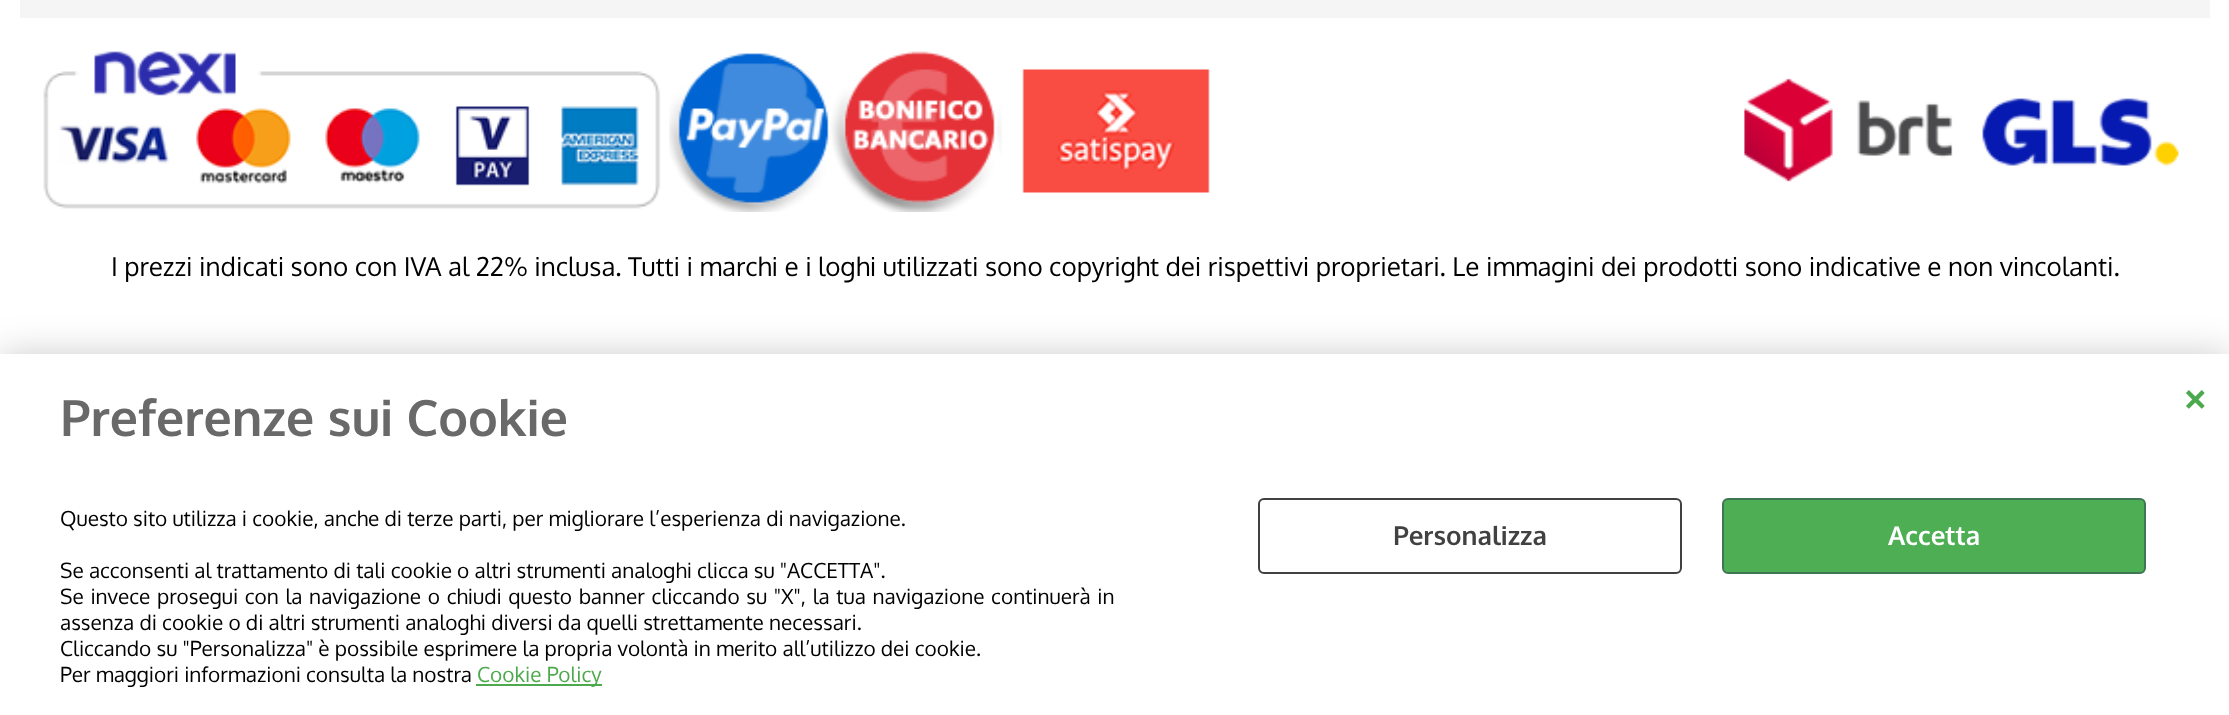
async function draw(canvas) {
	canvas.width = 2229;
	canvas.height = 715;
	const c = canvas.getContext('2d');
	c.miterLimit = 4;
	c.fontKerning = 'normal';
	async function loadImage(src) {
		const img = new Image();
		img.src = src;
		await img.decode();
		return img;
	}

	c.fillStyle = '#fff';
	c.fillRect(0, 0, 2229, 715);
	c.fillStyle = '#f5f5f5';
	c.fillRect(20, 0, 2190, 18);
	c.drawImage(await loadImage('img1.png'), 43, 51, 2136, 161);
	c.font = '26px Oxygen';
	c.fillStyle = '#000';
	c.fillText('I prezzi indicati sono con IVA al 22% inclusa. Tutti i marchi e i loghi utilizzati sono copyright dei rispettivi proprietari. Le immagini dei prodotti sono indicative e non vincolanti.', 111, 276);
	c.fillStyle = '#00000033';
	c.filter = 'blur(18px)';
	c.beginPath();
	c.rect(0, 354, 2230, 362);
	c.fill();
	c.filter = 'none';
	c.fillStyle = '#fff';
	c.fillRect(0, 354, 2229, 361);
	c.font = 'bold 50px Oxygen';
	c.fillStyle = '#696969';
	c.fillText('Preferenze sui Cookie', 60, 436);
	c.font = '20.8px Oxygen';
	c.fillStyle = '#000';
	c.fillText('Questo sito utilizza i cookie, anche di terze parti, per migliorare l’esperienza di navigazione.', 60, 526);
	c.fillText('Se acconsenti al trattamento di tali cookie o altri strumenti analoghi clicca su "ACCETTA".', 60, 578);
	c.wordSpacing = '1.5px';
	c.fillText('Se invece prosegui con la navigazione o chiudi questo banner cliccando su "X", la tua navigazione continuerà in', 60, 604);
	c.wordSpacing = '0px';
	for (const [text, x, y] of [
		['assenza di cookie o di altri strumenti analoghi diversi da quelli strettamente necessari.', 60, 630],
		['Cliccando su "Personalizza" è possibile esprimere la propria volontà in merito all’utilizzo dei cookie.', 60, 656],
		['Per maggiori informazioni consulta la nostra', 60, 682],
	]) {
		c.fillText(text, x, y);
	}
	c.fillStyle = '#4da94d';
	c.fillRect(476, 684, 126, 2);
	c.fillText('Cookie Policy', 477, 682);
	c.beginPath();
	c.roundRect(1259, 499, 422, 74, 5);
	c.strokeStyle = '#424141';
	c.lineWidth = 2;
	c.stroke();
	c.font = 'bold 26px Oxygen';
	c.fillStyle = '#424141';
	c.fillText('Personalizza', 1393, 545);
	c.fillStyle = '#4eae54';
	c.beginPath();
	c.roundRect(1723, 499, 422, 74, 5);
	c.fill();
	c.strokeStyle = '#3f7755';
	c.stroke();
	c.fillStyle = '#fff';
	c.fillText('Accetta', 1888, 545);
	c.font = 'bold 44px Oxygen';
	c.fillStyle = '#4da94d';
	c.fillText('×', 2180, 412);
}

draw(document.querySelector('canvas'));
